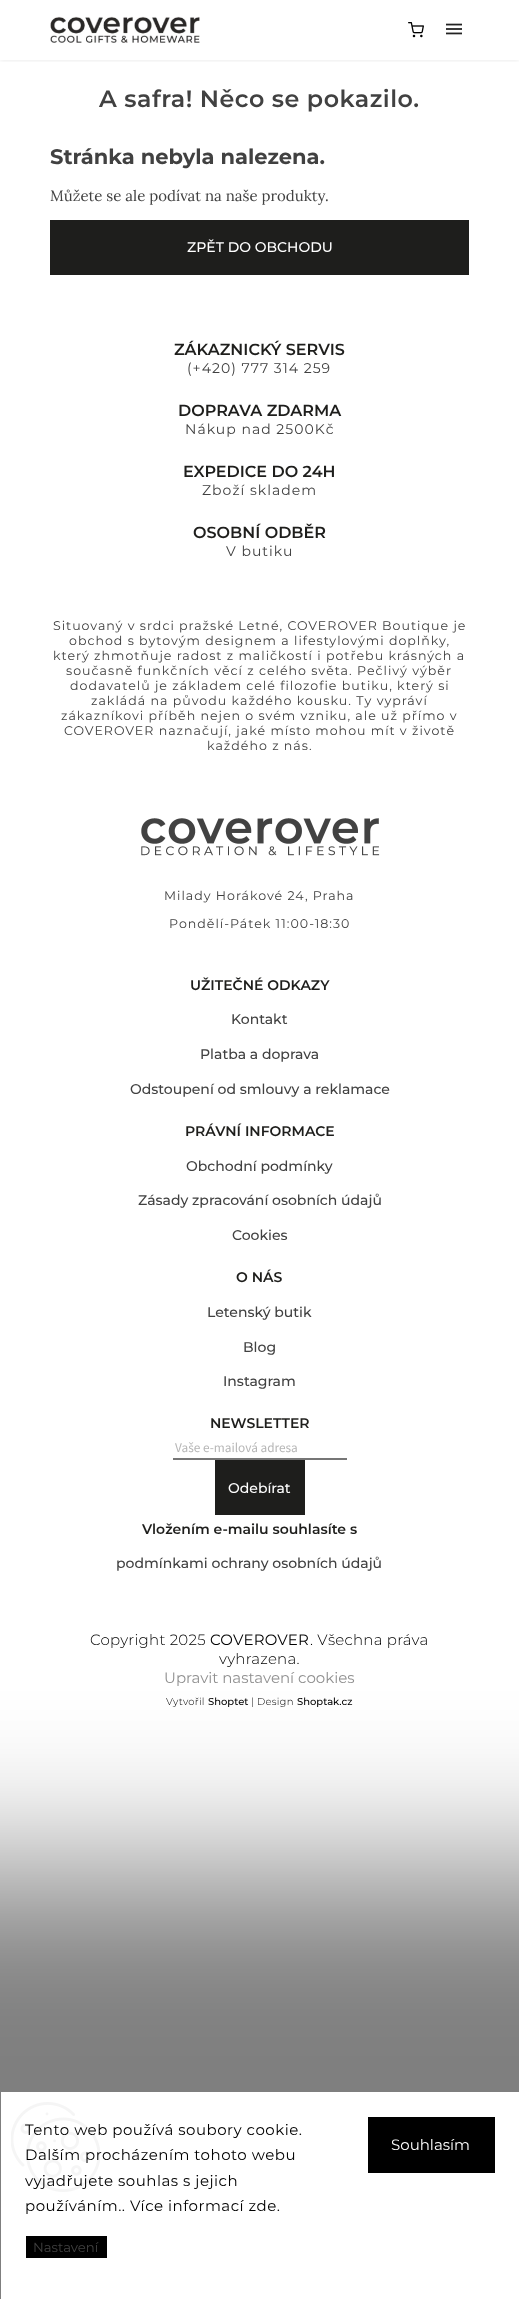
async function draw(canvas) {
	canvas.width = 519;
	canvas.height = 2299;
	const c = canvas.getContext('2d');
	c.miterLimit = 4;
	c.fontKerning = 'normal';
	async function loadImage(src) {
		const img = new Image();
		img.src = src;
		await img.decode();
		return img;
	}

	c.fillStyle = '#fff';
	c.fillRect(0, 0, 519, 2299);
	c.save();
	c.beginPath();
	c.rect(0, 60, 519, 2);
	c.clip();
	c.fillStyle = '#0000001a';
	c.filter = 'blur(2.5px)';
	c.beginPath();
	c.rect(0, 0, 519, 60);
	c.fill();
	c.filter = 'none';
	c.restore();
	c.drawImage(await loadImage('img1.png'), 50, 16, 150, 27);
	c.drawImage(await loadImage('img2.png'), 408, 22, 16, 16);
	c.drawImage(await loadImage('img3.png'), 446, 23, 16, 12);
	c.letterSpacing = '0.5px';
	c.font = '600 23.75px Montserrat';
	c.fillStyle = '#414141';
	c.fillText('A safra! Něco se pokazilo.', 99, 107);
	c.letterSpacing = '0px';
	c.font = 'bold 21px Montserrat';
	c.fillText('Stránka nebyla nalezena.', 50, 164);
	c.font = '15px Lora';
	c.fillText('Můžete se ale podívat na naše produkty.', 50, 201);
	c.fillStyle = '#1e1e1c';
	c.fillRect(50, 220, 419, 55);
	c.font = '500 14px Montserrat';
	c.fillStyle = '#fff';
	c.fillText('ZPĚT DO OBCHODU', 187, 252);
	c.font = '600 16px Montserrat';
	c.fillStyle = '#1e1e1c';
	c.fillText('ZÁKAZNICKÝ SERVIS', 174, 355);
	c.letterSpacing = '1px';
	c.font = '14px Montserrat';
	c.fillStyle = '#414141';
	c.fillText('(+420) 777 314 259', 187, 373);
	c.letterSpacing = '0px';
	c.font = '600 16px Montserrat';
	c.fillStyle = '#1e1e1c';
	c.fillText('DOPRAVA ZDARMA', 178, 416);
	c.letterSpacing = '1px';
	c.font = '14px Montserrat';
	c.fillStyle = '#414141';
	c.fillText('Nákup nad 2500Kč', 185, 434);
	c.letterSpacing = '0px';
	c.font = '600 16px Montserrat';
	c.fillStyle = '#1e1e1c';
	c.fillText('EXPEDICE DO 24H', 183, 477);
	c.letterSpacing = '1px';
	c.font = '14px Montserrat';
	c.fillStyle = '#414141';
	c.fillText('Zboží skladem', 202, 495);
	c.letterSpacing = '0px';
	c.font = '600 16px Montserrat';
	c.fillStyle = '#1e1e1c';
	c.fillText('OSOBNÍ ODBĚR', 193, 538);
	c.letterSpacing = '1px';
	c.font = '14px Montserrat';
	c.fillStyle = '#414141';
	c.fillText('V butiku', 226, 556);
	c.font = '12.6px Montserrat';
	for (const [text, x, y] of [
		['Situovaný v srdci pražské Letné, COVEROVER Boutique je', 53, 630],
		['obchod s bytovým designem a lifestylovými doplňky,', 69, 645],
		['který zhmotňuje radost z maličkostí i potřebu krásných a', 53, 660],
		['současně funkčních věcí z celého světa. Pečlivý výběr', 66, 675],
		['dodavatelů je základem celé filozofie butiku, který si', 70, 690],
		['zakládá na původu každého kousku. Ty vypráví', 91, 705],
		['zákazníkovi příběh nejen o svém vzniku, ale už přímo v', 61, 720],
		['COVEROVER naznačují, jaké místo mohou mít v životě', 64, 735],
		['každého z nás.', 207, 750],
	]) {
		c.fillText(text, x, y);
	}
	c.drawImage(await loadImage('img4.png'), 141, 818, 239, 38);
	c.fillText('Milady Horákové 24, Praha', 164, 900);
	c.fillText('Pondělí-Pátek 11:00-18:30', 169, 928);
	c.letterSpacing = '0px';
	c.font = '600 14px Montserrat';
	c.fillStyle = '#1e1e1c';
	c.fillText('UŽITEČNÉ ODKAZY', 190, 990);
	c.font = '500 14px Montserrat';
	c.fillStyle = '#414141';
	for (const [text, x, y] of [
		['Kontakt', 231, 1024],
		['Platba a doprava', 200, 1059],
		['Odstoupení od smlouvy a reklamace', 130, 1094],
	]) {
		c.fillText(text, x, y);
	}
	c.font = '600 14px Montserrat';
	c.fillStyle = '#1e1e1c';
	c.fillText('PRÁVNÍ INFORMACE', 185, 1136);
	c.font = '500 14px Montserrat';
	c.fillStyle = '#414141';
	for (const [text, x, y] of [
		['Obchodní podmínky', 186, 1171],
		['Zásady zpracování osobních údajů', 138, 1205],
		['Cookies', 232, 1240],
	]) {
		c.fillText(text, x, y);
	}
	c.font = '600 14px Montserrat';
	c.fillStyle = '#1e1e1c';
	c.fillText('O NÁS', 236, 1282);
	c.font = '500 14px Montserrat';
	c.fillStyle = '#414141';
	for (const [text, x, y] of [
		['Letenský butik', 207, 1317],
		['Blog', 243, 1352],
		['Instagram', 223, 1386],
	]) {
		c.fillText(text, x, y);
	}
	c.font = '600 14px Montserrat';
	c.fillStyle = '#1e1e1c';
	c.fillText('NEWSLETTER', 210, 1428);
	c.fillStyle = '#767676';
	c.fillRect(173, 1458, 174, 2);
	c.font = '13.25px "Source Sans 3"';
	c.fillStyle = '#b6b6b6';
	c.fillText('Vaše e-mailová adresa', 175, 1452);
	c.fillStyle = '#1e1e1c';
	c.fillRect(215, 1460, 90, 55);
	c.font = '500 14px Montserrat';
	c.fillStyle = '#fff';
	c.fillText('Odebírat', 228, 1493);
	c.font = '600 14px Montserrat';
	c.fillStyle = '#1e1e1c';
	c.fillText('Vložením e-mailu souhlasíte s', 142, 1534);
	c.font = '500 14px Montserrat';
	c.fillStyle = '#414141';
	c.fillText('podmínkami ochrany osobních údajů', 116, 1568);
	c.letterSpacing = '0.25px';
	c.font = '300 15px Montserrat';
	c.fillStyle = '#000';
	c.fillText('Copyright 2025', 90, 1645);
	c.font = '15px Montserrat';
	c.fillText('COVEROVER', 210, 1645);
	c.font = '300 15px Montserrat';
	c.fillText('. Všechna práva', 310, 1645);
	c.fillText('vyhrazena.', 219, 1664);
	c.letterSpacing = '0px';
	c.font = '15px Montserrat';
	c.fillStyle = '#909090';
	c.fillText('Upravit nastavení cookies', 164, 1683);
	c.letterSpacing = '0.25px';
	c.font = '300 10px Montserrat';
	c.fillStyle = '#000';
	c.fillText('Vytvořil', 166, 1705);
	c.letterSpacing = '0px';
	c.font = '500 10px Montserrat';
	c.fillText('Shoptet', 208, 1705);
	c.letterSpacing = '0.25px';
	c.font = '300 10px Montserrat';
	c.fillText('| Design', 251, 1705);
	c.letterSpacing = '0px';
	c.font = '500 10px Montserrat';
	c.fillText('Shoptak.cz', 297, 1705);
	c.save();
	c.beginPath();
	c.moveTo(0, 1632);
	c.lineTo(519, 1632);
	c.lineTo(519, 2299);
	c.lineTo(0, 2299);
	c.closePath();
	c.moveTo(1, 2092);
	c.lineTo(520, 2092);
	c.lineTo(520, 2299);
	c.lineTo(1, 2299);
	c.closePath();
	c.clip('evenodd');
	c.fillStyle = '#00000080';
	c.filter = 'blur(80px)';
	c.beginPath();
	c.rect(-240, 1873, 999, 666);
	c.fill();
	c.filter = 'none';
	c.restore();
	c.drawImage(await loadImage('img5.png'), 11, 2102, 89, 90);
	c.letterSpacing = '0.5px';
	c.font = '15px Montserrat';
	for (const [text, x, y] of [
		['Tento web používá soubory cookie.', 25, 2135],
		['Dalším procházením tohoto webu', 25, 2160],
		['vyjadřujete souhlas s jejich', 25, 2186],
		['používáním.. Více informací zde.', 25, 2211],
	]) {
		c.fillText(text, x, y);
	}
	c.fillRect(26, 2236, 81, 22);
	c.letterSpacing = '0px';
	c.font = '13.25px Montserrat';
	c.fillStyle = '#414141';
	c.fillText('Nastavení', 33, 2252);
	c.fillStyle = '#000';
	c.fillRect(368, 2117, 127, 56);
	c.font = '15px Montserrat';
	c.fillStyle = '#fff';
	c.fillText('Souhlasím', 391, 2150);
}

draw(document.querySelector('canvas'));
